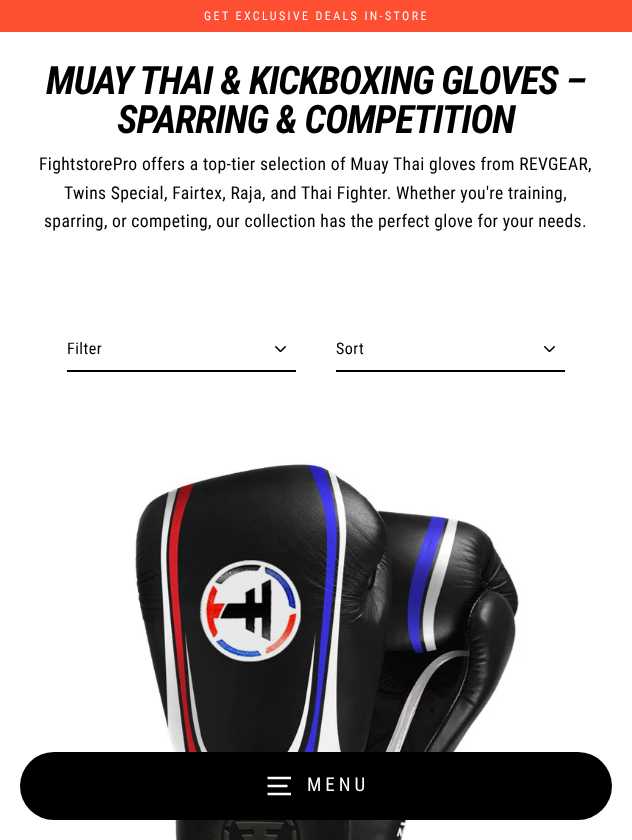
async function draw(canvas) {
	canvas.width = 632;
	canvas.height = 840;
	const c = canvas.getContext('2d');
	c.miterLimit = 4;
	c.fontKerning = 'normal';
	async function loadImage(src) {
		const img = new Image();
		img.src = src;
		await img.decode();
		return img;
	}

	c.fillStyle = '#fff';
	c.fillRect(0, 0, 632, 840);
	c.fillStyle = '#ff4f33';
	c.fillRect(0, 0, 632, 32);
	c.letterSpacing = '2.4px';
	c.font = '12px Roboto Condensed';
	c.fillStyle = '#fff';
	c.fillText('GET EXCLUSIVE DEALS IN-STORE', 204, 20);
	c.drawImage(await loadImage('img2.png'), 40, 412, 552, 428);
	c.fillStyle = '#000';
	c.beginPath();
	c.roundRect(20, 752, 592, 68, 34);
	c.fill();
	c.beginPath();
	c.moveTo(267.5, 778);
	c.lineTo(291, 778);
	c.moveTo(267.5, 786);
	c.lineTo(287.5, 786);
	c.moveTo(267.5, 794);
	c.lineTo(291, 794);
	c.strokeStyle = '#fff';
	c.lineWidth = 2.3;
	c.stroke();
	c.letterSpacing = '4px';
	c.font = '19px Roboto Condensed';
	c.fillStyle = '#fff';
	c.fillText('MENU', 307, 791);
	c.letterSpacing = '-1px';
	c.font = 'italic bold 39.1px Roboto Condensed';
	c.fillStyle = '#000';
	c.fillText('MUAY THAI & KICKBOXING GLOVES –', 46, 94);
	c.fillText('SPARRING & COMPETITION', 117, 133);
	c.letterSpacing = '0.35px';
	c.font = '17.6px Roboto Condensed';
	for (const [text, x, y] of [
		['FightstorePro offers a top-tier selection of Muay Thai gloves from REVGEAR,', 39, 170],
		['Twins Special, Fairtex, Raja, and Thai Fighter. Whether you\'re training,', 64, 199],
		['sparring, or competing, our collection has the perfect glove for your needs.', 44, 227],
	]) {
		c.fillText(text, x, y);
	}
	c.drawImage(await loadImage('img1.png'), 275, 346, 11, 6);
	c.fillRect(67, 370, 229, 2);
	c.letterSpacing = '0.5px';
	c.font = '16px Roboto Condensed';
	c.fillText('Filter', 67, 354);
	c.drawImage(await loadImage('img1.png'), 544, 346, 11, 6);
	c.fillRect(336, 370, 229, 2);
	c.fillText('Sort', 336, 354);
}

draw(document.querySelector('canvas'));
